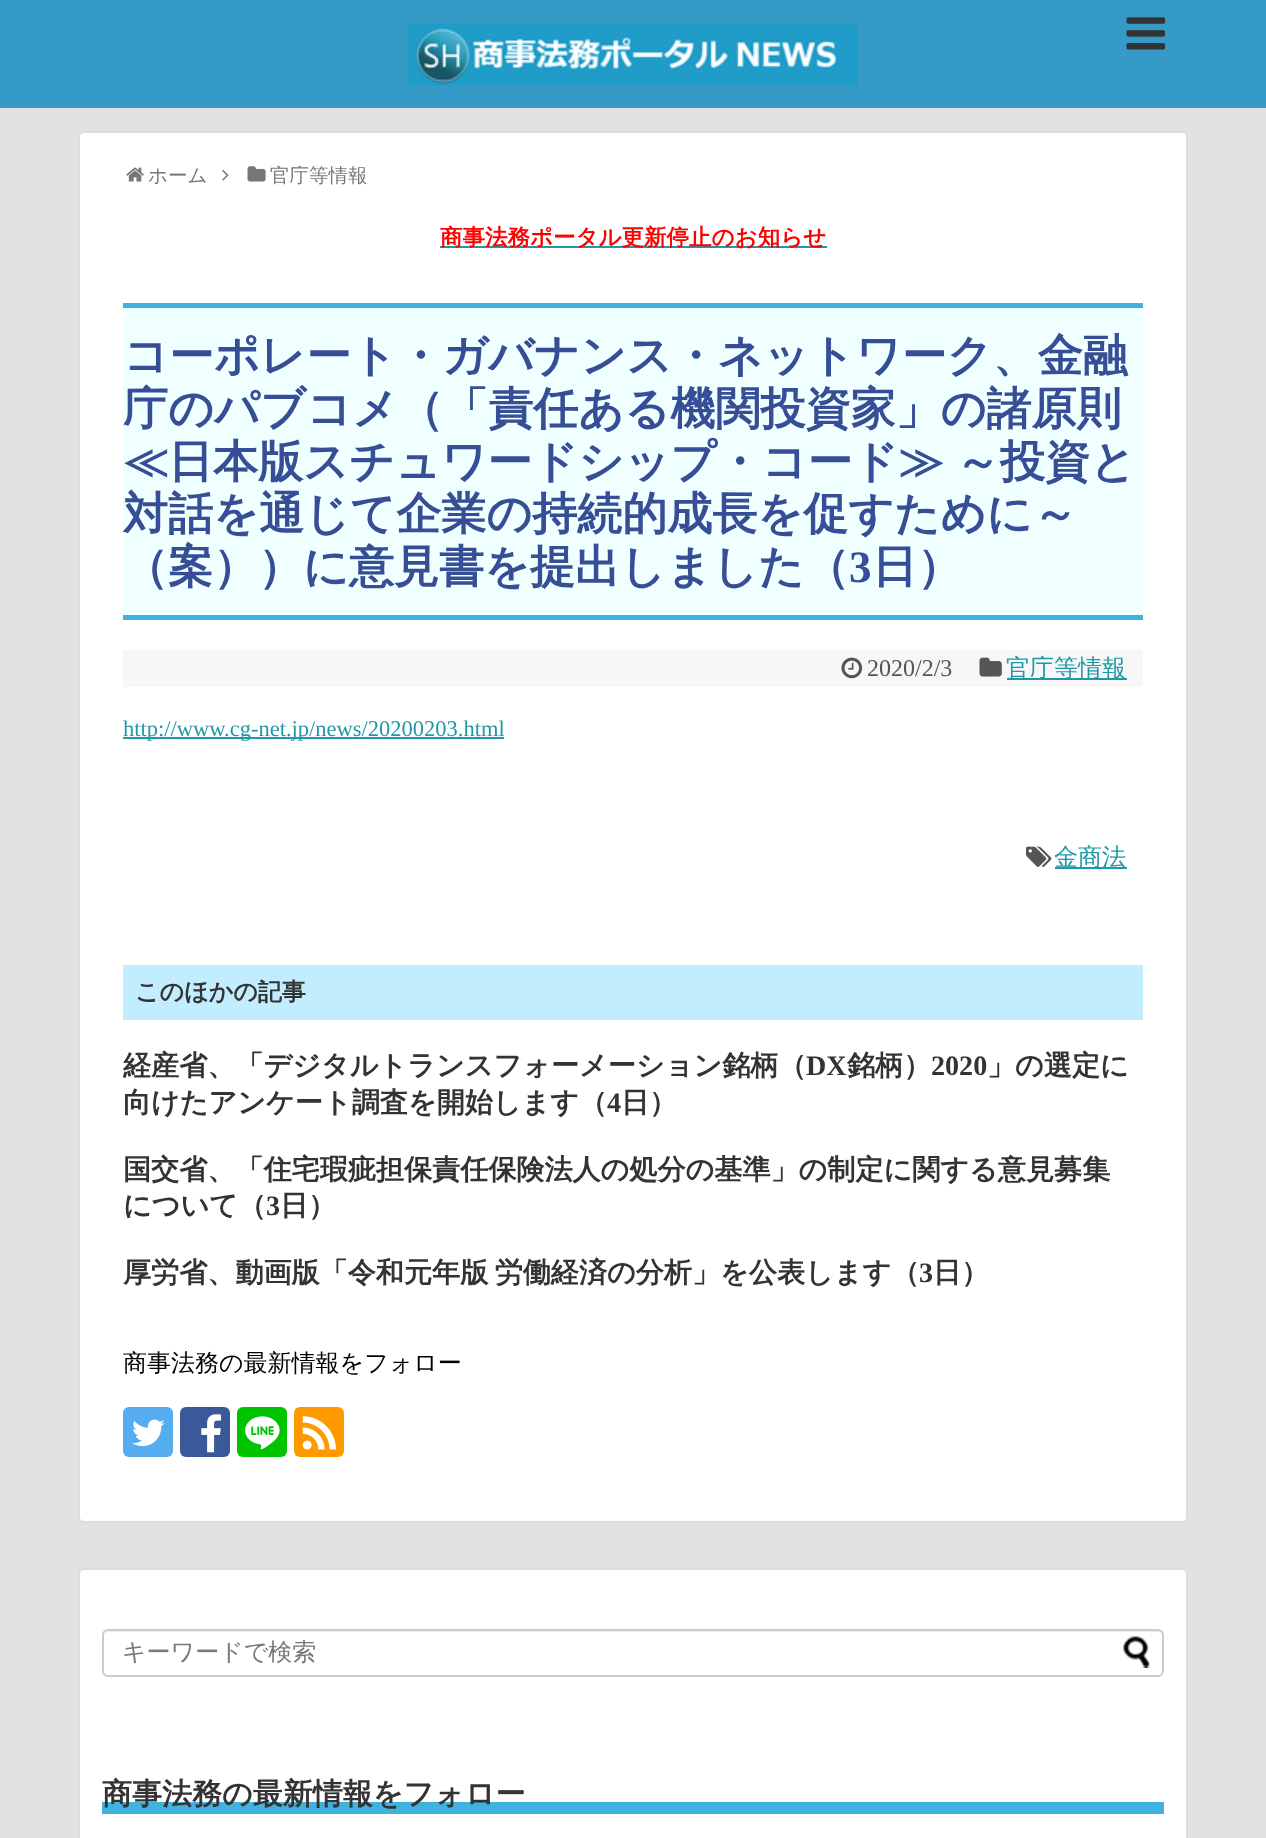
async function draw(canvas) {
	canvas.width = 1266;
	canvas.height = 1838;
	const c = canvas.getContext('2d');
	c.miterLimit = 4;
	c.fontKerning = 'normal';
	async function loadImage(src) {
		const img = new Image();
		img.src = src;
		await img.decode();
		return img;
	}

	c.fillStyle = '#e2e2e2';
	c.fillRect(0, 0, 1266, 1838);
	c.fillStyle = '#369ac6';
	c.fillRect(0, 0, 1266, 108);
	c.drawImage(await loadImage('img1.png'), 408, 24, 450, 62);
	c.drawImage(await loadImage('img2.png'), 1126, 17, 40, 33);
	c.fillStyle = '#fff';
	c.beginPath();
	c.roundRect(79, 132, 1108, 1390, 5);
	c.fill();
	c.strokeStyle = '#ddd';
	c.lineWidth = 2;
	c.stroke();
	c.drawImage(await loadImage('img3.png'), 126, 167, 18, 15);
	c.font = '500 19.5px WenQuanYi Zen Hei';
	c.fillStyle = '#777';
	c.fillText('ホーム', 148, 182);
	c.drawImage(await loadImage('img4.png'), 222, 169, 7, 12);
	c.drawImage(await loadImage('img5.png'), 247, 166, 19, 16);
	c.fillText('官庁等情報', 270, 182);
	c.fillStyle = '#2098a8';
	c.fillRect(440, 246, 387, 2);
	c.font = 'bold 22.5px WenQuanYi Zen Hei';
	c.fillStyle = '#f00';
	c.fillText('商事法務ポータル更新停止のお知らせ', 440, 245);
	for (const [x, y, w, h, color] of [
		[123, 308, 1020, 307, '#f0ffff'],
		[123, 303, 1020, 5, '#3fb3dd'],
		[123, 615, 1020, 5, '#3fb3dd'],
	]) {
		c.fillStyle = color;
		c.fillRect(x, y, w, h);
	}
	c.font = 'bold 45px WenQuanYi Zen Hei';
	c.fillStyle = '#364e96';
	c.fillText('コーポレート・ガバナンス・ネットワーク、金融', 123, 371);
	c.fillText('庁のパブコメ（「責任ある機関投資家」の諸原則', 123, 424);
	c.wordSpacing = '-2px';
	c.fillText('≪日本版スチュワードシップ・コード≫ ～投資と', 123, 477);
	c.wordSpacing = '0px';
	c.fillText('対話を通じて企業の持続的成長を促すために～', 123, 529);
	c.fillText('（案））に意見書を提出しました（', 123, 582);
	c.font = 'bold 45px Liberation Serif';
	c.fillText('3', 849, 582);
	c.font = 'bold 45px WenQuanYi Zen Hei';
	c.fillText('日）', 872, 582);
	c.fillStyle = '#f7f7f7';
	c.fillRect(123, 650, 1020, 37);
	c.drawImage(await loadImage('img6.png'), 841, 657, 22, 22);
	c.font = '24px Liberation Serif';
	c.fillStyle = '#555';
	c.fillText('2020/2/3', 867, 676);
	c.drawImage(await loadImage('img7.png'), 979, 657, 23, 20);
	c.fillStyle = '#2098a8';
	c.fillRect(1007, 678, 120, 2);
	c.font = '500 24px WenQuanYi Zen Hei';
	c.fillText('官庁等情報', 1006, 676);
	c.fillRect(123, 737, 381, 2);
	c.font = '22.5px Liberation Serif';
	c.fillText('http://www.cg-net.jp/news/20200203.html', 123, 736);
	c.drawImage(await loadImage('img8.png'), 1026, 846, 26, 21);
	c.fillRect(1055, 867, 72, 2);
	c.font = '500 24px WenQuanYi Zen Hei';
	c.fillText('金商法', 1054, 865);
	c.fillStyle = '#c2edff';
	c.fillRect(123, 965, 1020, 55);
	c.font = 'bold 24px WenQuanYi Zen Hei';
	c.fillStyle = '#333';
	c.fillText('このほかの記事', 135, 1000);
	c.font = 'bold 28.1px WenQuanYi Zen Hei';
	c.fillText('経産省、「デジタルトランスフォーメーション銘柄（', 123, 1075);
	c.font = 'bold 28.1px Liberation Serif';
	c.fillText('DX', 806, 1075);
	c.font = 'bold 28.1px WenQuanYi Zen Hei';
	c.fillText('銘柄）', 847, 1075);
	c.font = 'bold 28.1px Liberation Serif';
	c.fillText('2020', 931, 1075);
	c.font = 'bold 28.1px WenQuanYi Zen Hei';
	c.fillText('」の選定に', 987, 1075);
	c.fillText('向けたアンケート調査を開始します（', 123, 1112);
	c.font = 'bold 28.1px Liberation Serif';
	c.fillText('4', 607, 1112);
	c.font = 'bold 28.1px WenQuanYi Zen Hei';
	for (const [text, x, y] of [
		['日）', 621, 1112],
		['国交省、「住宅瑕疵担保責任保険法人の処分の基準」の制定に関する意見募集', 123, 1179],
		['について（', 123, 1215],
	]) {
		c.fillText(text, x, y);
	}
	c.font = 'bold 28.1px Liberation Serif';
	c.fillText('3', 266, 1215);
	c.font = 'bold 28.1px WenQuanYi Zen Hei';
	c.fillText('日）', 280, 1215);
	c.wordSpacing = '-2px';
	c.fillText('厚労省、動画版「令和元年版 労働経済の分析」を公表します（', 123, 1282);
	c.wordSpacing = '0px';
	c.font = 'bold 28.1px Liberation Serif';
	c.fillText('3', 919, 1282);
	c.font = 'bold 28.1px WenQuanYi Zen Hei';
	c.fillText('日）', 933, 1282);
	c.font = '500 24px WenQuanYi Zen Hei';
	c.fillStyle = '#000';
	c.fillText('商事法務の最新情報をフォロー', 123, 1371);
	c.fillStyle = '#55acee';
	c.beginPath();
	c.roundRect(123, 1407, 50, 50, 6);
	c.fill();
	c.drawImage(await loadImage('img9.png'), 132, 1419, 33, 28);
	c.fillStyle = '#3b5998';
	c.beginPath();
	c.roundRect(180, 1407, 50, 50, 6);
	c.fill();
	c.drawImage(await loadImage('img10.png'), 201, 1414, 21, 39);
	c.fillStyle = '#00c300';
	c.beginPath();
	c.roundRect(237, 1407, 50, 50, 6);
	c.fill();
	c.drawImage(await loadImage('img11.png'), 245, 1416, 35, 34);
	c.fillStyle = '#fe9900';
	c.beginPath();
	c.roundRect(294, 1407, 50, 50, 6);
	c.fill();
	c.drawImage(await loadImage('img12.png'), 302, 1416, 34, 34);
	c.fillStyle = '#fff';
	c.beginPath();
	c.roundRect(79, 1569, 1108, 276, 5);
	c.fill();
	c.stroke();
	c.fillStyle = '#ececec';
	c.beginPath();
	c.moveTo(108, 1632);
	c.lineTo(1158, 1632);
	c.bezierCurveTo(1160, 1632, 1162, 1634, 1162, 1636);
	c.lineTo(1162, 1672);
	c.lineTo(1161, 1675);
	c.bezierCurveTo(1162, 1674, 1163, 1672, 1163, 1671);
	c.lineTo(1163, 1636);
	c.bezierCurveTo(1163, 1633, 1161, 1631, 1158, 1631);
	c.lineTo(109, 1631);
	c.bezierCurveTo(106, 1631, 104, 1633, 104, 1636);
	c.bezierCurveTo(104, 1634, 106, 1632, 108, 1632);
	c.closePath();
	c.fill();
	c.beginPath();
	c.roundRect(103, 1630, 1060, 46, 5);
	c.strokeStyle = '#ccc';
	c.stroke();
	c.fillStyle = '#777';
	c.fillText('キーワードで検索', 122, 1660);
	c.drawImage(await loadImage('img13.png'), 1123, 1636, 27, 32);
	c.fillStyle = '#3fb3dd';
	c.fillRect(102, 1802, 1062, 12);
	c.font = 'bold 30px WenQuanYi Zen Hei';
	c.fillStyle = '#333';
	c.fillText('商事法務の最新情報をフォロー', 102, 1804);
}

draw(document.querySelector('canvas'));
